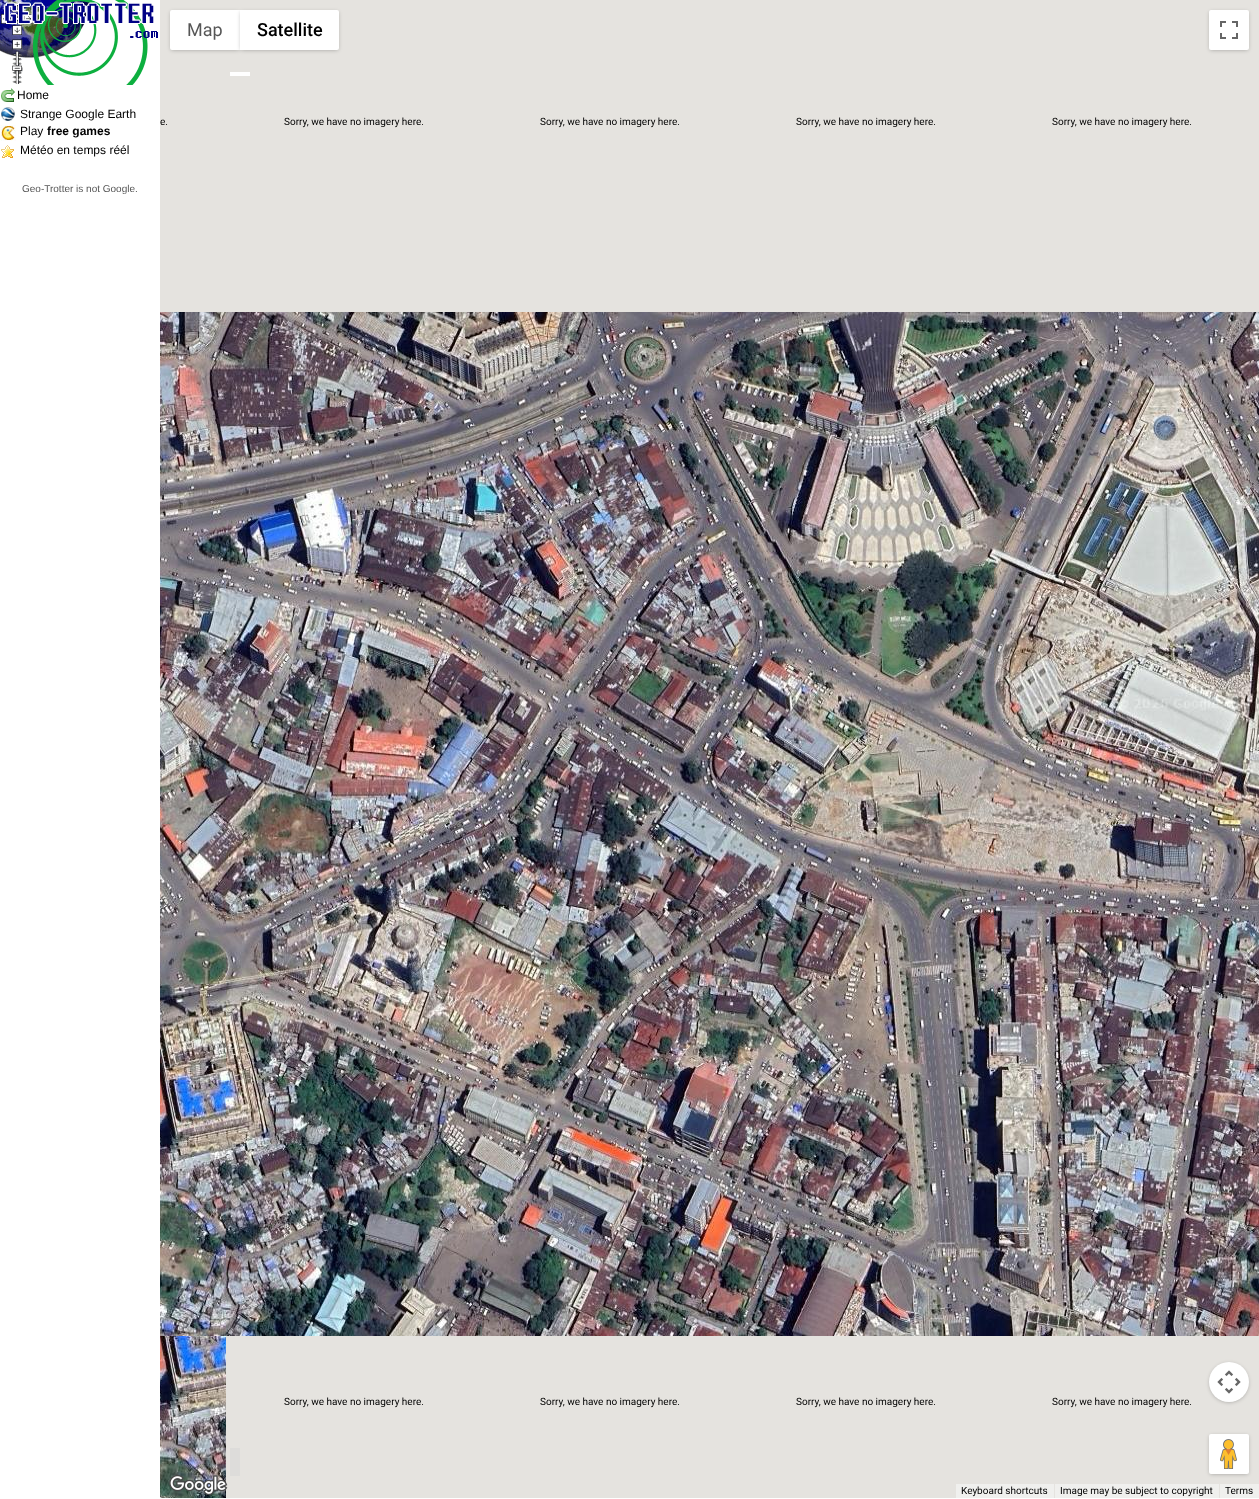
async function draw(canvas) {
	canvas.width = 1259;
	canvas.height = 1499;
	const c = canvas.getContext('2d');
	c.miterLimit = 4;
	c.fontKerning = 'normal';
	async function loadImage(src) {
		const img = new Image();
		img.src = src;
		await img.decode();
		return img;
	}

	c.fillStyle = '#fff';
	c.fillRect(0, 0, 1259, 1499);
	c.drawImage(await loadImage('img1.png'), 0, 0, 158, 85);
	c.drawImage(await loadImage('img2.png'), 1, 88, 14, 14);
	c.font = '12px Liberation Sans';
	c.fillStyle = '#000';
	c.fillText('Home', 17, 99);
	c.drawImage(await loadImage('img3.png'), 1, 107, 14, 14);
	c.fillText('Strange Google Earth', 20, 118);
	c.drawImage(await loadImage('img4.png'), 0, 125, 16, 16);
	c.fillText('Play', 20, 135);
	c.font = 'bold 12px Liberation Sans';
	c.fillText('free games', 47, 135);
	c.drawImage(await loadImage('img5.png'), 1, 145, 13, 13);
	c.font = '12px Liberation Sans';
	c.fillText('Météo en temps réél', 20, 154);
	c.font = '10px Liberation Sans';
	c.fillStyle = '#565656';
	c.fillText('Geo-Trotter is not Google.', 22, 192);
	c.fillStyle = '#e5e3df';
	c.fillRect(160, 0, 1099, 1498);
	c.fillStyle = '#0000004d';
	c.filter = 'blur(2px)';
	c.beginPath();
	c.roundRect(171, 12, 68, 38, 1);
	c.fill();
	c.filter = 'none';
	c.fillStyle = '#fff';
	c.beginPath();
	c.roundRect(170, 10, 70, 40, [2, 0, 0, 2]);
	c.fill();
	c.font = '18px Roboto';
	c.fillStyle = '#565656';
	c.fillText('Map', 187, 36);
	c.fillStyle = '#0000004d';
	c.filter = 'blur(2px)';
	c.beginPath();
	c.roundRect(241, 12, 97, 38, 1);
	c.fill();
	c.filter = 'none';
	c.fillStyle = '#fff';
	c.beginPath();
	c.roundRect(240, 10, 99, 40, [0, 2, 2, 0]);
	c.fill();
	c.font = '500 18px Roboto';
	c.fillStyle = '#000';
	c.fillText('Satellite', 257, 36);
	c.fillStyle = '#0000004d';
	c.filter = 'blur(2px)';
	c.beginPath();
	c.roundRect(1210, 12, 38, 38, 1);
	c.fill();
	c.filter = 'none';
	c.fillStyle = '#fff';
	c.beginPath();
	c.roundRect(1209, 10, 40, 40, 2);
	c.fill();
	c.drawImage(await loadImage('img6.png'), 1220, 21, 18, 18);
	c.font = '10px Roboto';
	c.fillStyle = '#000';
	for (const [text, x, y] of [
		['e.', 160, 125],
		['Sorry, we have no imagery here.', 284, 125],
		['Sorry, we have no imagery here.', 540, 125],
		['Sorry, we have no imagery here.', 796, 125],
		['Sorry, we have no imagery here.', 1052, 125],
	]) {
		c.fillText(text, x, y);
	}
	c.drawImage(await loadImage('img7.png'), 160, 312, 66, 256);
	c.drawImage(await loadImage('img8.png'), 226, 312, 256, 256);
	c.drawImage(await loadImage('img9.png'), 482, 312, 256, 256);
	c.drawImage(await loadImage('img10.png'), 738, 312, 256, 256);
	c.drawImage(await loadImage('img11.png'), 994, 312, 256, 256);
	c.drawImage(await loadImage('img12.png'), 1250, 312, 9, 256);
	c.drawImage(await loadImage('img13.png'), 160, 568, 66, 256);
	c.drawImage(await loadImage('img14.png'), 226, 568, 256, 256);
	c.drawImage(await loadImage('img15.png'), 482, 568, 256, 256);
	c.drawImage(await loadImage('img16.png'), 738, 568, 256, 256);
	c.drawImage(await loadImage('img17.png'), 994, 568, 256, 256);
	c.drawImage(await loadImage('img18.png'), 1250, 568, 9, 256);
	c.drawImage(await loadImage('img19.png'), 160, 824, 66, 256);
	c.drawImage(await loadImage('img20.png'), 226, 824, 256, 256);
	c.drawImage(await loadImage('img21.png'), 482, 824, 256, 256);
	c.drawImage(await loadImage('img22.png'), 738, 824, 256, 256);
	c.drawImage(await loadImage('img23.png'), 994, 824, 256, 256);
	c.drawImage(await loadImage('img24.png'), 1250, 824, 9, 256);
	c.drawImage(await loadImage('img25.png'), 160, 1080, 66, 256);
	c.drawImage(await loadImage('img26.png'), 226, 1080, 256, 256);
	c.drawImage(await loadImage('img27.png'), 482, 1080, 256, 256);
	c.drawImage(await loadImage('img28.png'), 738, 1080, 256, 256);
	c.drawImage(await loadImage('img29.png'), 994, 1080, 256, 256);
	c.drawImage(await loadImage('img30.png'), 1250, 1080, 9, 256);
	c.drawImage(await loadImage('img31.png'), 160, 1336, 66, 162);
	for (const [text, x, y] of [
		['Sorry, we have no imagery here.', 284, 1405],
		['Sorry, we have no imagery here.', 540, 1405],
		['Sorry, we have no imagery here.', 796, 1405],
		['Sorry, we have no imagery here.', 1052, 1405],
	]) {
		c.fillText(text, x, y);
	}
	c.fillStyle = '#0000004d';
	c.filter = 'blur(2px)';
	c.beginPath();
	c.roundRect(1210, 1364, 38, 38, 19);
	c.fill();
	c.filter = 'none';
	c.fillStyle = '#fff';
	c.beginPath();
	c.arc(1229, 1382, 20, 0, 2 * Math.PI);
	c.fill();
	c.drawImage(await loadImage('img32.png'), 1217, 1370, 24, 24);
	c.fillStyle = '#0000004d';
	c.filter = 'blur(2px)';
	c.beginPath();
	c.roundRect(1210, 1436, 38, 38, 1);
	c.fill();
	c.filter = 'none';
	c.fillStyle = '#fff';
	c.beginPath();
	c.roundRect(1209, 1434, 40, 40, 2);
	c.fill();
	c.drawImage(await loadImage('img33.png'), 1220, 1439, 17, 30);
	c.drawImage(await loadImage('img34.png'), 169, 1475, 59, 21);
	c.fillStyle = '#f0f0ee';
	c.fillRect(956, 1484, 98, 14);
	c.fillStyle = '#000';
	c.fillText('Keyboard shortcuts', 961, 1494);
	c.fillStyle = '#f0f0ee';
	c.fillRect(1055, 1484, 164, 14);
	c.fillStyle = '#000';
	c.fillText('Image may be subject to copyright', 1060, 1494);
	c.fillStyle = '#f0f0ee';
	c.fillRect(1220, 1484, 39, 14);
	c.fillStyle = '#000';
	c.fillText('Terms', 1225, 1494);
	c.fillStyle = '#fff';
	c.fillRect(230, 72, 20, 4);
	c.fillStyle = '#dddcda';
	c.fillRect(230, 1448, 10, 28);
}

draw(document.querySelector('canvas'));
